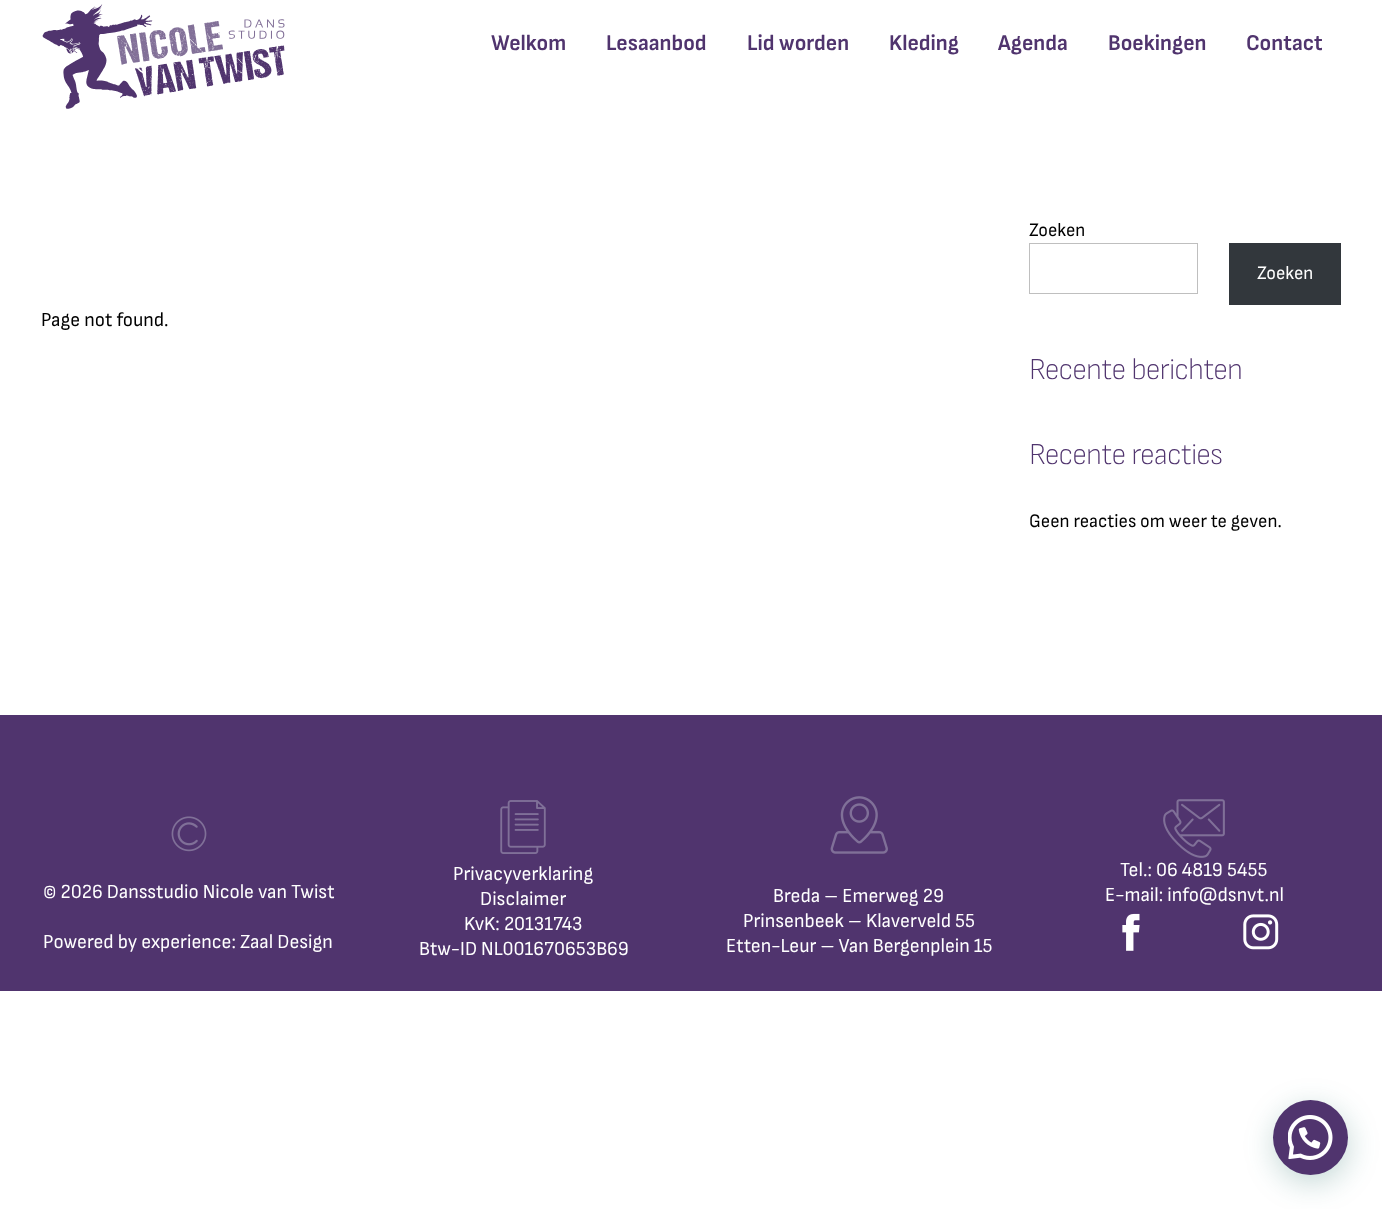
async function draw(canvas) {
	canvas.width = 1382;
	canvas.height = 1209;
	const c = canvas.getContext('2d');
	c.miterLimit = 4;
	c.fontKerning = 'normal';
	async function loadImage(src) {
		const img = new Image();
		img.src = src;
		await img.decode();
		return img;
	}

	c.fillStyle = '#fff';
	c.fillRect(0, 0, 1382, 1209);
	c.drawImage(await loadImage('img1.png'), 42, 4, 243, 105);
	c.font = 'bold 22.5px Sofia Sans Semi Condensed';
	c.fillStyle = '#50346e';
	for (const [text, x, y] of [
		['Welkom', 491, 50],
		['Lesaanbod', 606, 50],
		['Lid worden', 747, 50],
		['Kleding', 889, 50],
		['Agenda', 998, 50],
		['Boekingen', 1108, 50],
		['Contact', 1246, 50],
	]) {
		c.fillText(text, x, y);
	}
	c.font = '20px Sofia Sans Semi Condensed';
	c.fillStyle = '#000';
	c.fillText('Page not found.', 41, 326);
	c.font = '19px Sofia Sans Semi Condensed';
	c.fillText('Zoeken', 1029, 236);
	c.strokeStyle = '#bfbfbf';
	c.strokeRect(1029.5, 243.5, 168, 50);
	c.fillStyle = '#32373c';
	c.fillRect(1229, 243, 112, 62);
	c.fillStyle = '#fff';
	c.fillText('Zoeken', 1257, 279);
	c.letterSpacing = '-0.9px';
	c.font = '200 30.5px Sofia Sans Semi Condensed';
	c.fillStyle = '#50346e';
	c.fillText('Recente berichten', 1029, 379);
	c.fillText('Recente reacties', 1029, 464);
	c.letterSpacing = '0px';
	c.font = '19px Sofia Sans Semi Condensed';
	c.fillStyle = '#000';
	c.fillText('Geen reacties om weer te geven.', 1029, 527);
	c.fillStyle = '#50346e';
	c.fillRect(0, 715, 1382, 276);
	c.drawImage(await loadImage('img2.png'), 171, 816, 36, 36);
	c.font = '20px Sofia Sans Semi Condensed';
	c.fillStyle = '#fff';
	c.fillText('© 2026 Dansstudio Nicole van Twist', 43, 898);
	c.fillText('Powered by experience: Zaal Design', 43, 948);
	c.drawImage(await loadImage('img3.png'), 500, 800, 46, 54);
	for (const [text, x, y] of [
		['Privacyverklaring', 453, 880],
		['Disclaimer', 480, 905],
		['KvK: 20131743', 464, 930],
		['Btw-ID NL001670653B69', 419, 955],
	]) {
		c.fillText(text, x, y);
	}
	c.drawImage(await loadImage('img4.png'), 830, 796, 58, 58);
	for (const [text, x, y] of [
		['Breda – Emerweg 29', 773, 902],
		['Prinsenbeek – Klaverveld 55', 743, 927],
		['Etten-Leur – Van Bergenplein 15', 726, 952],
	]) {
		c.fillText(text, x, y);
	}
	c.drawImage(await loadImage('img5.png'), 1163, 799, 62, 59);
	c.fillText('Tel.: 06 4819 5455', 1120, 876);
	c.fillText('E-mail: info@dsnvt.nl', 1105, 901);
	c.drawImage(await loadImage('img6.png'), 1122, 913, 18, 38);
	c.drawImage(await loadImage('img7.png'), 1243, 914, 36, 36);
	c.fillStyle = '#075e543d';
	c.filter = 'blur(15px)';
	c.beginPath();
	c.roundRect(1274, 1108, 75, 75, 37.5);
	c.fill();
	c.filter = 'none';
	c.fillStyle = '#50346e';
	c.beginPath();
	c.arc(1310.5, 1137.5, 37.5, 0, 2 * Math.PI);
	c.fill();
	c.drawImage(await loadImage('img8.png'), 1288, 1115, 45, 45);
}

draw(document.querySelector('canvas'));
